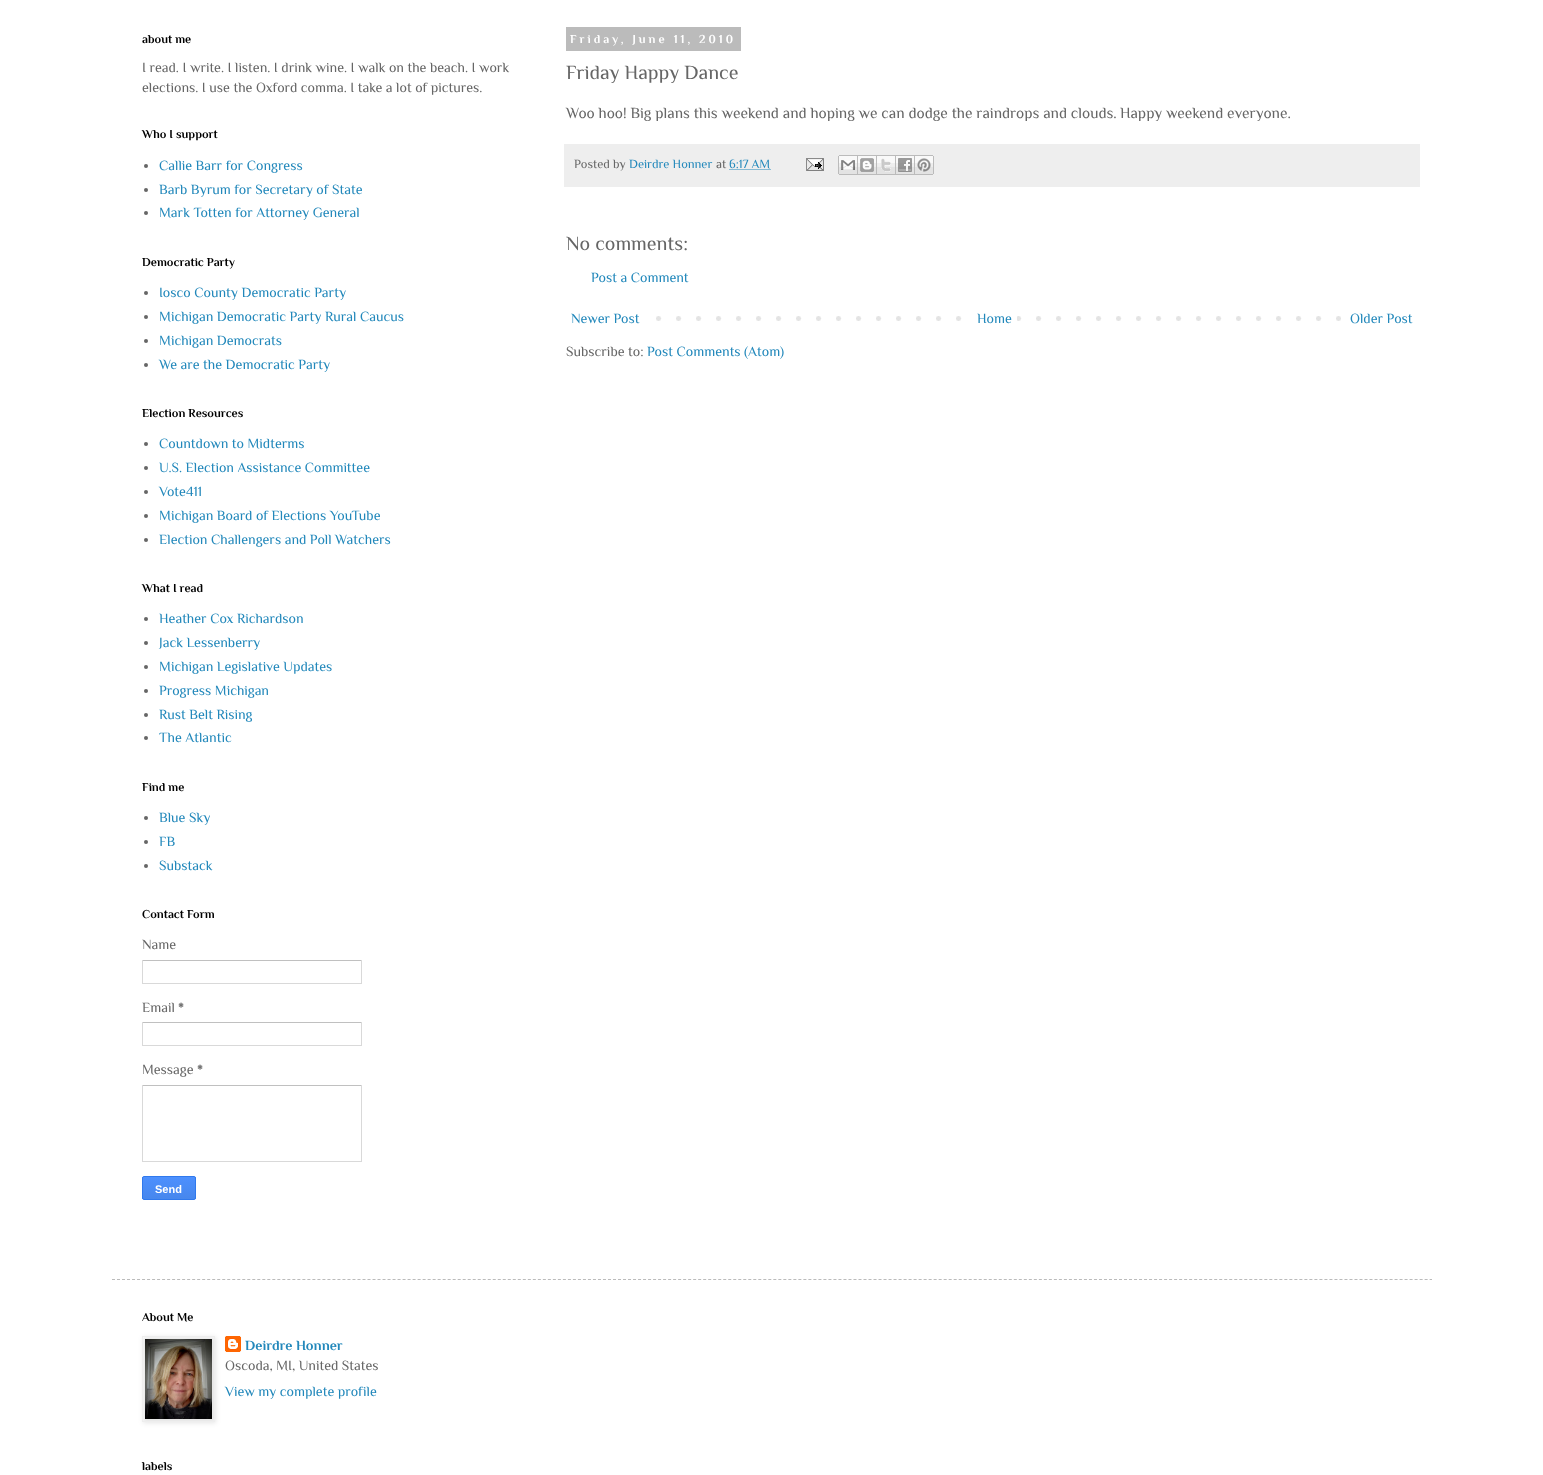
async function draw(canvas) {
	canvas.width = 1543;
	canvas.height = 1475;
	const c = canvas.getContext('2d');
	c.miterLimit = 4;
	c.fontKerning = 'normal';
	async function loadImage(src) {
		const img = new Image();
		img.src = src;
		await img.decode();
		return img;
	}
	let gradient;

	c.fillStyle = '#fff';
	c.fillRect(0, 0, 1543, 1475);
	c.font = 'bold 12px Philosopher';
	c.fillStyle = '#000';
	c.fillText('about me', 142, 43);
	c.font = '14px Philosopher';
	c.fillStyle = '#666';
	c.fillText('I read. I write. I listen. I drink wine. I walk on the beach. I work', 142, 72);
	c.fillText('elections. I use the Oxford comma. I take a lot of pictures.', 142, 92);
	c.font = 'bold 12px Philosopher';
	c.fillStyle = '#000';
	c.fillText('Who I support', 142, 138);
	c.fillStyle = '#666';
	c.beginPath();
	c.arc(146, 166, 2, 0, 2 * Math.PI);
	c.fill();
	c.font = '14px Philosopher';
	c.fillStyle = '#28b';
	c.fillText('Callie Barr for Congress', 159, 170);
	c.fillStyle = '#666';
	c.beginPath();
	c.arc(146, 190, 2, 0, 2 * Math.PI);
	c.fill();
	c.fillStyle = '#28b';
	c.fillText('Barb Byrum for Secretary of State', 159, 194);
	c.fillStyle = '#666';
	c.beginPath();
	c.arc(146, 213, 2, 0, 2 * Math.PI);
	c.fill();
	c.fillStyle = '#28b';
	c.fillText('Mark Totten for Attorney General', 159, 217);
	c.font = 'bold 12px Philosopher';
	c.fillStyle = '#000';
	c.fillText('Democratic Party', 142, 266);
	c.fillStyle = '#666';
	c.beginPath();
	c.arc(146, 293, 2, 0, 2 * Math.PI);
	c.fill();
	c.font = '14px Philosopher';
	c.fillStyle = '#28b';
	c.fillText('Iosco County Democratic Party', 159, 297);
	c.fillStyle = '#666';
	c.beginPath();
	c.arc(146, 317, 2, 0, 2 * Math.PI);
	c.fill();
	c.fillStyle = '#28b';
	c.fillText('Michigan Democratic Party Rural Caucus', 159, 321);
	c.fillStyle = '#666';
	c.beginPath();
	c.arc(146, 341, 2, 0, 2 * Math.PI);
	c.fill();
	c.fillStyle = '#28b';
	c.fillText('Michigan Democrats', 159, 345);
	c.fillStyle = '#666';
	c.beginPath();
	c.arc(146, 365, 2, 0, 2 * Math.PI);
	c.fill();
	c.fillStyle = '#28b';
	c.fillText('We are the Democratic Party', 159, 369);
	c.font = 'bold 12px Philosopher';
	c.fillStyle = '#000';
	c.fillText('Election Resources', 142, 417);
	c.fillStyle = '#666';
	c.beginPath();
	c.arc(146, 444, 2, 0, 2 * Math.PI);
	c.fill();
	c.font = '14px Philosopher';
	c.fillStyle = '#28b';
	c.fillText('Countdown to Midterms', 159, 448);
	c.fillStyle = '#666';
	c.beginPath();
	c.arc(146, 468, 2, 0, 2 * Math.PI);
	c.fill();
	c.fillStyle = '#28b';
	c.fillText('U.S. Election Assistance Committee', 159, 472);
	c.fillStyle = '#666';
	c.beginPath();
	c.arc(146, 492, 2, 0, 2 * Math.PI);
	c.fill();
	c.fillStyle = '#28b';
	c.fillText('Vote411', 159, 496);
	c.fillStyle = '#666';
	c.beginPath();
	c.arc(146, 516, 2, 0, 2 * Math.PI);
	c.fill();
	c.fillStyle = '#28b';
	c.fillText('Michigan Board of Elections YouTube', 159, 520);
	c.fillStyle = '#666';
	c.beginPath();
	c.arc(146, 540, 2, 0, 2 * Math.PI);
	c.fill();
	c.fillStyle = '#28b';
	c.fillText('Election Challengers and Poll Watchers', 159, 544);
	c.font = 'bold 12px Philosopher';
	c.fillStyle = '#000';
	c.fillText('What I read', 142, 592);
	c.fillStyle = '#666';
	c.beginPath();
	c.arc(146, 619, 2, 0, 2 * Math.PI);
	c.fill();
	c.font = '14px Philosopher';
	c.fillStyle = '#28b';
	c.fillText('Heather Cox Richardson', 159, 623);
	c.fillStyle = '#666';
	c.beginPath();
	c.arc(146, 643, 2, 0, 2 * Math.PI);
	c.fill();
	c.fillStyle = '#28b';
	c.fillText('Jack Lessenberry', 159, 647);
	c.fillStyle = '#666';
	c.beginPath();
	c.arc(146, 667, 2, 0, 2 * Math.PI);
	c.fill();
	c.fillStyle = '#28b';
	c.fillText('Michigan Legislative Updates', 159, 671);
	c.fillStyle = '#666';
	c.beginPath();
	c.arc(146, 691, 2, 0, 2 * Math.PI);
	c.fill();
	c.fillStyle = '#28b';
	c.fillText('Progress Michigan', 159, 695);
	c.fillStyle = '#666';
	c.beginPath();
	c.arc(146, 715, 2, 0, 2 * Math.PI);
	c.fill();
	c.fillStyle = '#28b';
	c.fillText('Rust Belt Rising', 159, 719);
	c.fillStyle = '#666';
	c.beginPath();
	c.arc(146, 738, 2, 0, 2 * Math.PI);
	c.fill();
	c.fillStyle = '#28b';
	c.fillText('The Atlantic', 159, 742);
	c.font = 'bold 12px Philosopher';
	c.fillStyle = '#000';
	c.fillText('Find me', 142, 791);
	c.fillStyle = '#666';
	c.beginPath();
	c.arc(146, 818, 2, 0, 2 * Math.PI);
	c.fill();
	c.font = '14px Philosopher';
	c.fillStyle = '#28b';
	c.fillText('Blue Sky', 159, 822);
	c.fillStyle = '#666';
	c.beginPath();
	c.arc(146, 842, 2, 0, 2 * Math.PI);
	c.fill();
	c.fillStyle = '#28b';
	c.fillText('FB', 159, 846);
	c.fillStyle = '#666';
	c.beginPath();
	c.arc(146, 866, 2, 0, 2 * Math.PI);
	c.fill();
	c.fillStyle = '#28b';
	c.fillText('Substack', 159, 870);
	c.font = 'bold 12px Philosopher';
	c.fillStyle = '#000';
	c.fillText('Contact Form', 142, 918);
	c.font = '14px Philosopher';
	c.fillStyle = '#666';
	c.fillText('Name', 142, 949);
	for (const [x, y, w, h, color] of [
		[142, 960, 220, 1, '#c0c0c0'],
		[361, 960, 1, 24, '#d9d9d9'],
		[142, 983, 220, 1, '#d9d9d9'],
		[142, 960, 1, 24, '#d9d9d9'],
	]) {
		c.fillStyle = color;
		c.fillRect(x, y, w, h);
	}
	c.fillStyle = '#666';
	c.fillText('Email', 142, 1012);
	c.font = 'bold 14px Philosopher';
	c.fillText('*', 178, 1012);
	for (const [x, y, w, h, color] of [
		[142, 1022, 220, 1, '#c0c0c0'],
		[361, 1022, 1, 24, '#d9d9d9'],
		[142, 1045, 220, 1, '#d9d9d9'],
		[142, 1022, 1, 24, '#d9d9d9'],
	]) {
		c.fillStyle = color;
		c.fillRect(x, y, w, h);
	}
	c.font = '14px Philosopher';
	c.fillStyle = '#666';
	c.fillText('Message', 142, 1074);
	c.font = 'bold 14px Philosopher';
	c.fillText('*', 197, 1074);
	for (const [x, y, w, h, color] of [
		[142, 1085, 220, 1, '#c0c0c0'],
		[361, 1085, 1, 77, '#d9d9d9'],
		[142, 1161, 220, 1, '#d9d9d9'],
		[142, 1085, 1, 77, '#d9d9d9'],
	]) {
		c.fillStyle = color;
		c.fillRect(x, y, w, h);
	}
	c.save();
	c.beginPath();
	c.roundRect(142, 1176, 54, 24, 2);
	c.clip();
	gradient = c.createLinearGradient(169, 1177, 169, 1199);
	gradient.addColorStop(0, '#4d90fe');
	gradient.addColorStop(1, '#4787ed');
	c.fillStyle = gradient;
	c.fillRect(142, 1177, 54, 22);
	c.restore();
	c.beginPath();
	c.roundRect(142.5, 1176.5, 53, 23, 1.5);
	c.strokeStyle = '#3079ed';
	c.stroke();
	c.font = 'bold 11px Liberation Sans';
	c.fillStyle = '#fff';
	c.fillText('Send', 155, 1193);
	c.fillStyle = '#bbb';
	c.fillRect(566, 27, 175, 24);
	c.letterSpacing = '3px';
	c.font = 'bold 12px Philosopher';
	c.fillStyle = '#fff';
	c.fillText('Friday, June 11, 2010', 570, 43);
	c.letterSpacing = '0px';
	c.font = '20px Philosopher';
	c.fillStyle = '#666';
	c.fillText('Friday Happy Dance', 566, 79);
	c.font = '15.4px Philosopher';
	c.fillText('Woo hoo! Big plans this weekend and hoping we can dodge the raindrops and clouds.', 566, 118);
	c.fillText('Happy weekend everyone.', 1120, 118);
	c.fillStyle = '#eee';
	c.fillRect(564, 144, 856, 43);
	c.font = '12.5px Philosopher';
	c.fillStyle = '#666';
	c.fillText('Posted by', 574, 168);
	c.fillStyle = '#28b';
	c.fillText('Deirdre Honner', 629, 168);
	c.fillStyle = '#666';
	c.fillText('at', 716, 168);
	c.fillStyle = '#28b';
	c.fillText('6:17 AM', 729, 168);
	c.beginPath();
	c.moveTo(729.5, 169.5);
	c.lineTo(771, 169.5);
	c.strokeStyle = '#28b';
	c.setLineDash([1, 1]);
	c.stroke();
	c.drawImage(await loadImage('img1.png'), 806, 158, 18, 13);
	c.drawImage(await loadImage('img2.png'), 838, 155, 20, 20);
	c.drawImage(await loadImage('img3.png'), 858, 155, 19, 20);
	c.drawImage(await loadImage('img4.png'), 877, 155, 19, 20);
	c.drawImage(await loadImage('img5.png'), 896, 155, 19, 20);
	c.drawImage(await loadImage('img6.png'), 915, 155, 19, 20);
	c.font = '20px Philosopher';
	c.fillStyle = '#666';
	c.fillText('No comments:', 566, 250);
	c.font = '14px Philosopher';
	c.fillStyle = '#28b';
	c.fillText('Post a Comment', 591, 282);
	c.drawImage(await loadImage('img7.png'), 656, 316, 685, 5);
	c.fillText('Newer Post', 571, 323);
	c.fillStyle = '#fff';
	c.fillRect(976, 316, 41, 5);
	c.fillStyle = '#28b';
	c.fillText('Home', 977, 323);
	c.fillText('Older Post', 1350, 323);
	c.fillStyle = '#666';
	c.fillText('Subscribe to:', 566, 356);
	c.fillStyle = '#28b';
	c.fillText('Post Comments (Atom)', 647, 356);
	c.beginPath();
	c.moveTo(112, 1279.5);
	c.lineTo(1432, 1279.5);
	c.strokeStyle = '#bbb';
	c.setLineDash([3, 2.01]);
	c.stroke();
	c.font = 'bold 12px Philosopher';
	c.fillStyle = '#000';
	c.fillText('About Me', 142, 1321);
	c.fillStyle = '#0000001a';
	c.filter = 'blur(2.5px)';
	c.beginPath();
	c.rect(143, 1337, 73, 86);
	c.fill();
	c.filter = 'none';
	c.strokeStyle = '#eee';
	c.setLineDash([]);
	c.strokeRect(142.5, 1336.5, 72, 85);
	c.drawImage(await loadImage('img8.png'), 145, 1339, 67, 80);
	c.drawImage(await loadImage('img9.png'), 225, 1336, 16, 16);
	c.font = 'bold 14px Philosopher';
	c.fillStyle = '#28b';
	c.fillText('Deirdre Honner', 245, 1350);
	c.font = '14px Philosopher';
	c.fillStyle = '#666';
	c.fillText('Oscoda, MI, United States', 225, 1370);
	c.fillStyle = '#28b';
	c.fillText('View my complete profile', 225, 1396);
	c.font = 'bold 12px Philosopher';
	c.fillStyle = '#000';
	c.fillText('labels', 142, 1470);
}

draw(document.querySelector('canvas'));
